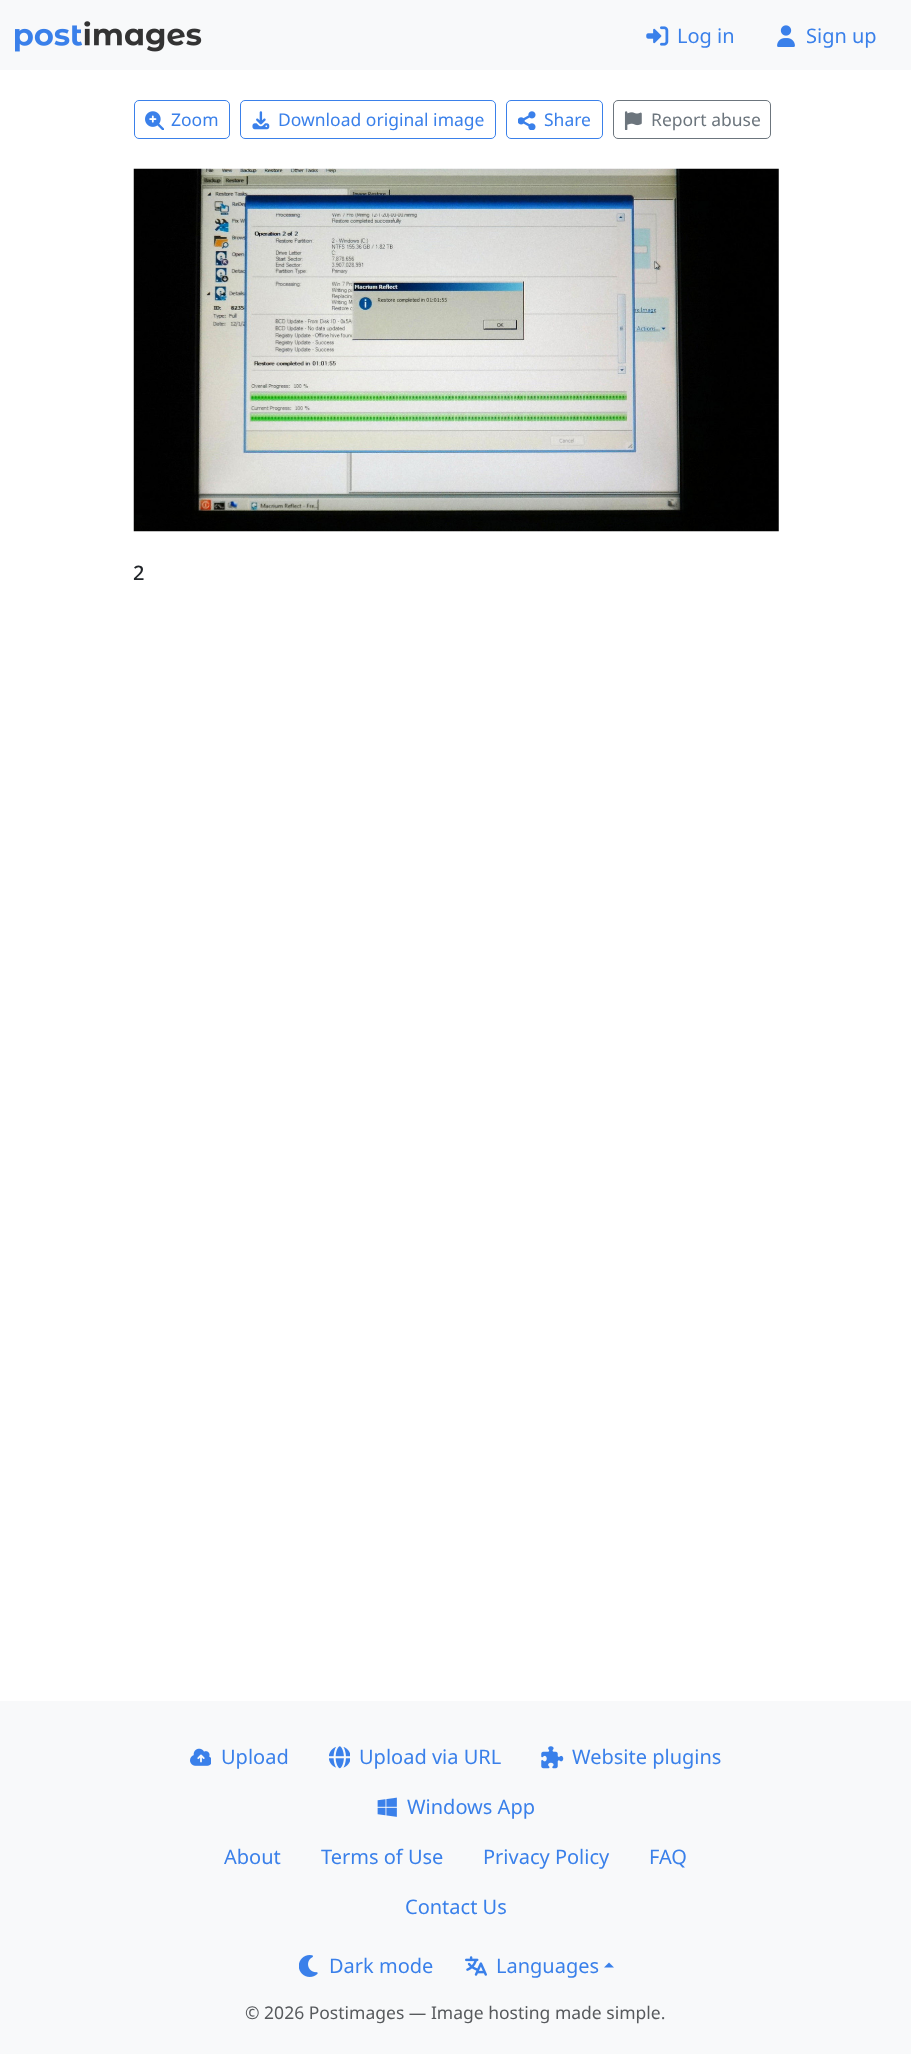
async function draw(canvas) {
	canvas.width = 911;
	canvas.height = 2054;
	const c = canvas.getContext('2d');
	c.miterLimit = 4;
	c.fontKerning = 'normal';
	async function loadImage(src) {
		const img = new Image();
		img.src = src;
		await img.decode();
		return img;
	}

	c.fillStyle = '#fff';
	c.fillRect(0, 0, 911, 2054);
	c.fillStyle = '#f8f9fa';
	c.fillRect(0, 0, 911, 70);
	c.drawImage(await loadImage('img1.png'), 15, 21, 187, 31);
	c.drawImage(await loadImage('img2.png'), 646, 26, 23, 20);
	c.font = '20px Noto Sans';
	c.fillStyle = '#3a80ea';
	c.fillText('Log in', 677, 43);
	c.drawImage(await loadImage('img3.png'), 777, 25, 18, 22);
	c.fillText('Sign up', 806, 43);
	c.beginPath();
	c.roundRect(134.5, 100.5, 95, 38, 4.5);
	c.strokeStyle = '#3a80ea';
	c.stroke();
	c.drawImage(await loadImage('img4.png'), 145, 111, 19, 19);
	c.font = '17.5px Noto Sans';
	c.fillText('Zoom', 171, 126);
	c.beginPath();
	c.roundRect(240.5, 100.5, 255, 38, 4.5);
	c.stroke();
	c.drawImage(await loadImage('img5.png'), 252, 111, 18, 19);
	c.fillText('Download original image', 278, 126);
	c.beginPath();
	c.roundRect(506.5, 100.5, 96, 38, 4.5);
	c.stroke();
	c.drawImage(await loadImage('img6.png'), 518, 111, 18, 19);
	c.fillText('Share', 544, 126);
	c.beginPath();
	c.roundRect(613.5, 100.5, 157, 38, 4.5);
	c.strokeStyle = '#6c757d';
	c.stroke();
	c.drawImage(await loadImage('img7.png'), 624, 111, 18, 19);
	c.fillStyle = '#6c757d';
	c.fillText('Report abuse', 651, 126);
	c.drawImage(await loadImage('img8.png'), 133, 168, 646, 364);
	c.font = '500 20px Noto Sans';
	c.fillStyle = '#212529';
	c.fillText('2', 133, 580);
	c.fillStyle = '#f8f9fa';
	c.fillRect(0, 1701, 911, 353);
	c.drawImage(await loadImage('img9.png'), 190, 1748, 21, 18);
	c.font = '20px Noto Sans';
	c.fillStyle = '#3a80ea';
	c.fillText('Upload', 221, 1764);
	c.drawImage(await loadImage('img10.png'), 329, 1746, 21, 23);
	c.fillText('Upload via URL', 359, 1764);
	c.drawImage(await loadImage('img11.png'), 541, 1746, 23, 23);
	c.fillText('Website plugins', 572, 1764);
	c.drawImage(await loadImage('img12.png'), 377, 1797, 20, 20);
	for (const [text, x, y] of [
		['Windows App', 407, 1814],
		['About', 224, 1864],
		['Terms of Use', 321, 1864],
		['Privacy Policy', 483, 1864],
		['FAQ', 649, 1864],
		['Contact Us', 405, 1914],
	]) {
		c.fillText(text, x, y);
	}
	c.drawImage(await loadImage('img13.png'), 299, 1955, 19, 22);
	c.fillText('Dark mode', 329, 1973);
	c.drawImage(await loadImage('img14.png'), 465, 1956, 22, 20);
	c.fillText('Languages', 496, 1973);
	c.beginPath();
	c.moveTo(614, 1967.5);
	c.lineTo(604, 1967.5);
	c.lineTo(609, 1962.5);
	c.closePath();
	c.fill();
	c.font = '17.5px Noto Sans';
	c.fillStyle = '#575a5d';
	c.fillText('© 2026 Postimages — Image hosting made simple.', 245, 2019);
}

draw(document.querySelector('canvas'));
